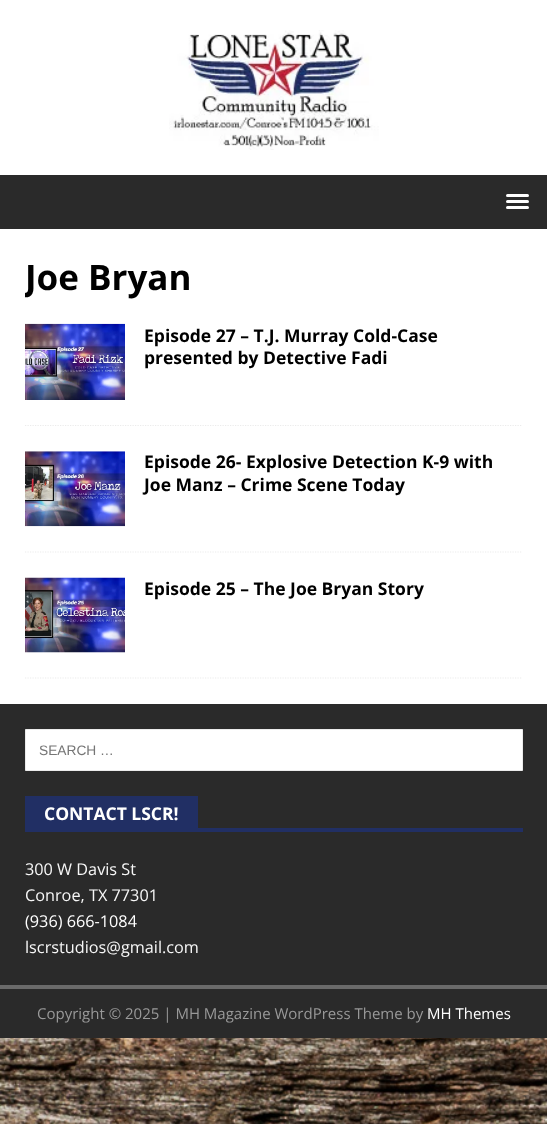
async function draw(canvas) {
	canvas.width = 547;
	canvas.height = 1124;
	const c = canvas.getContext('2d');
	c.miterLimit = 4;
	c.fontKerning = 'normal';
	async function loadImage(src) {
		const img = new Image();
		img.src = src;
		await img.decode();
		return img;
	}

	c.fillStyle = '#fff';
	c.fillRect(0, 0, 547, 1124);
	c.drawImage(await loadImage('img1.png'), 0, 1038, 547, 86);
	c.drawImage(await loadImage('img2.png'), 169, 30, 210, 120);
	c.fillStyle = '#2a2a2a';
	c.fillRect(0, 175, 547, 54);
	c.fillStyle = '#fff';
	c.beginPath();
	c.roundRect(506, 194, 23, 3, 1.5);
	c.fill();
	c.beginPath();
	c.roundRect(506, 200, 23, 3, 1.5);
	c.fill();
	c.beginPath();
	c.roundRect(506, 206, 23, 3, 1.5);
	c.fill();
	c.save();
	c.beginPath();
	c.rect(25, 254, 498, 425);
	c.clip();
	c.font = 'bold 35px Open Sans';
	c.fillStyle = '#000';
	c.fillText('Joe Bryan', 25, 290);
	c.restore();
	c.beginPath();
	c.moveTo(25, 425.5);
	c.lineTo(522.5, 425.5);
	c.strokeStyle = '#ebebeb';
	c.lineWidth = 1.2;
	c.setLineDash([1.25, 1.25]);
	c.stroke();
	c.drawImage(await loadImage('img3.png'), 25, 323, 100, 77);
	c.font = 'bold 17.5px Open Sans';
	c.fillStyle = '#000';
	c.fillText('Episode 27 – T.J. Murray Cold-Case', 144, 342);
	c.fillText('presented by Detective Fadi', 144, 364);
	c.beginPath();
	c.moveTo(25, 552);
	c.lineTo(522.5, 552);
	c.stroke();
	c.drawImage(await loadImage('img4.png'), 25, 451, 100, 76);
	c.fillText('Episode 26- Explosive Detection K-9 with', 144, 468);
	c.fillText('Joe Manz – Crime Scene Today', 144, 491);
	c.beginPath();
	c.moveTo(25, 678);
	c.lineTo(522.5, 678);
	c.stroke();
	c.drawImage(await loadImage('img5.png'), 25, 577, 100, 76);
	c.fillText('Episode 25 – The Joe Bryan Story', 144, 595);
	c.fillStyle = '#2a2a2a';
	c.fillRect(0, 704, 547, 281);
	c.fillStyle = '#fff';
	c.beginPath();
	c.rect(25.5, 729.5, 497, 41);
	c.fill();
	c.lineWidth = 1;
	c.setLineDash([]);
	c.stroke();
	c.font = '13.75px Liberation Sans';
	c.fillStyle = '#757575';
	c.fillText('SEARCH …', 39, 755);
	c.fillStyle = '#212f64';
	c.fillRect(25, 828, 498, 4);
	c.fillRect(25, 796, 173, 32);
	c.font = 'bold 17.5px Open Sans';
	c.fillStyle = '#fff';
	c.fillText('CONTACT LSCR!', 44, 820);
	c.font = '16.25px Open Sans';
	c.fillStyle = '#f7f7f7';
	c.fillText('300 W Davis St', 25, 875);
	c.fillText('Conroe, TX 77301', 25, 901);
	c.fillStyle = '#fff';
	c.fillText('(936) 666-1084', 25, 927);
	c.fillStyle = '#f7f7f7';
	c.fillText('lscrstudios@gmail.com', 25, 953);
	c.fillStyle = '#2a2a2a';
	c.fillRect(0, 989, 547, 49);
	c.fillStyle = '#6a6a6a';
	c.fillRect(0, 985, 547, 4);
	c.font = '15px Open Sans';
	c.fillStyle = '#999';
	c.fillText('Copyright © 2025 | MH Magazine WordPress Theme by', 37, 1019);
	c.fillStyle = '#fff';
	c.fillText('MH Themes', 427, 1019);
}

draw(document.querySelector('canvas'));
